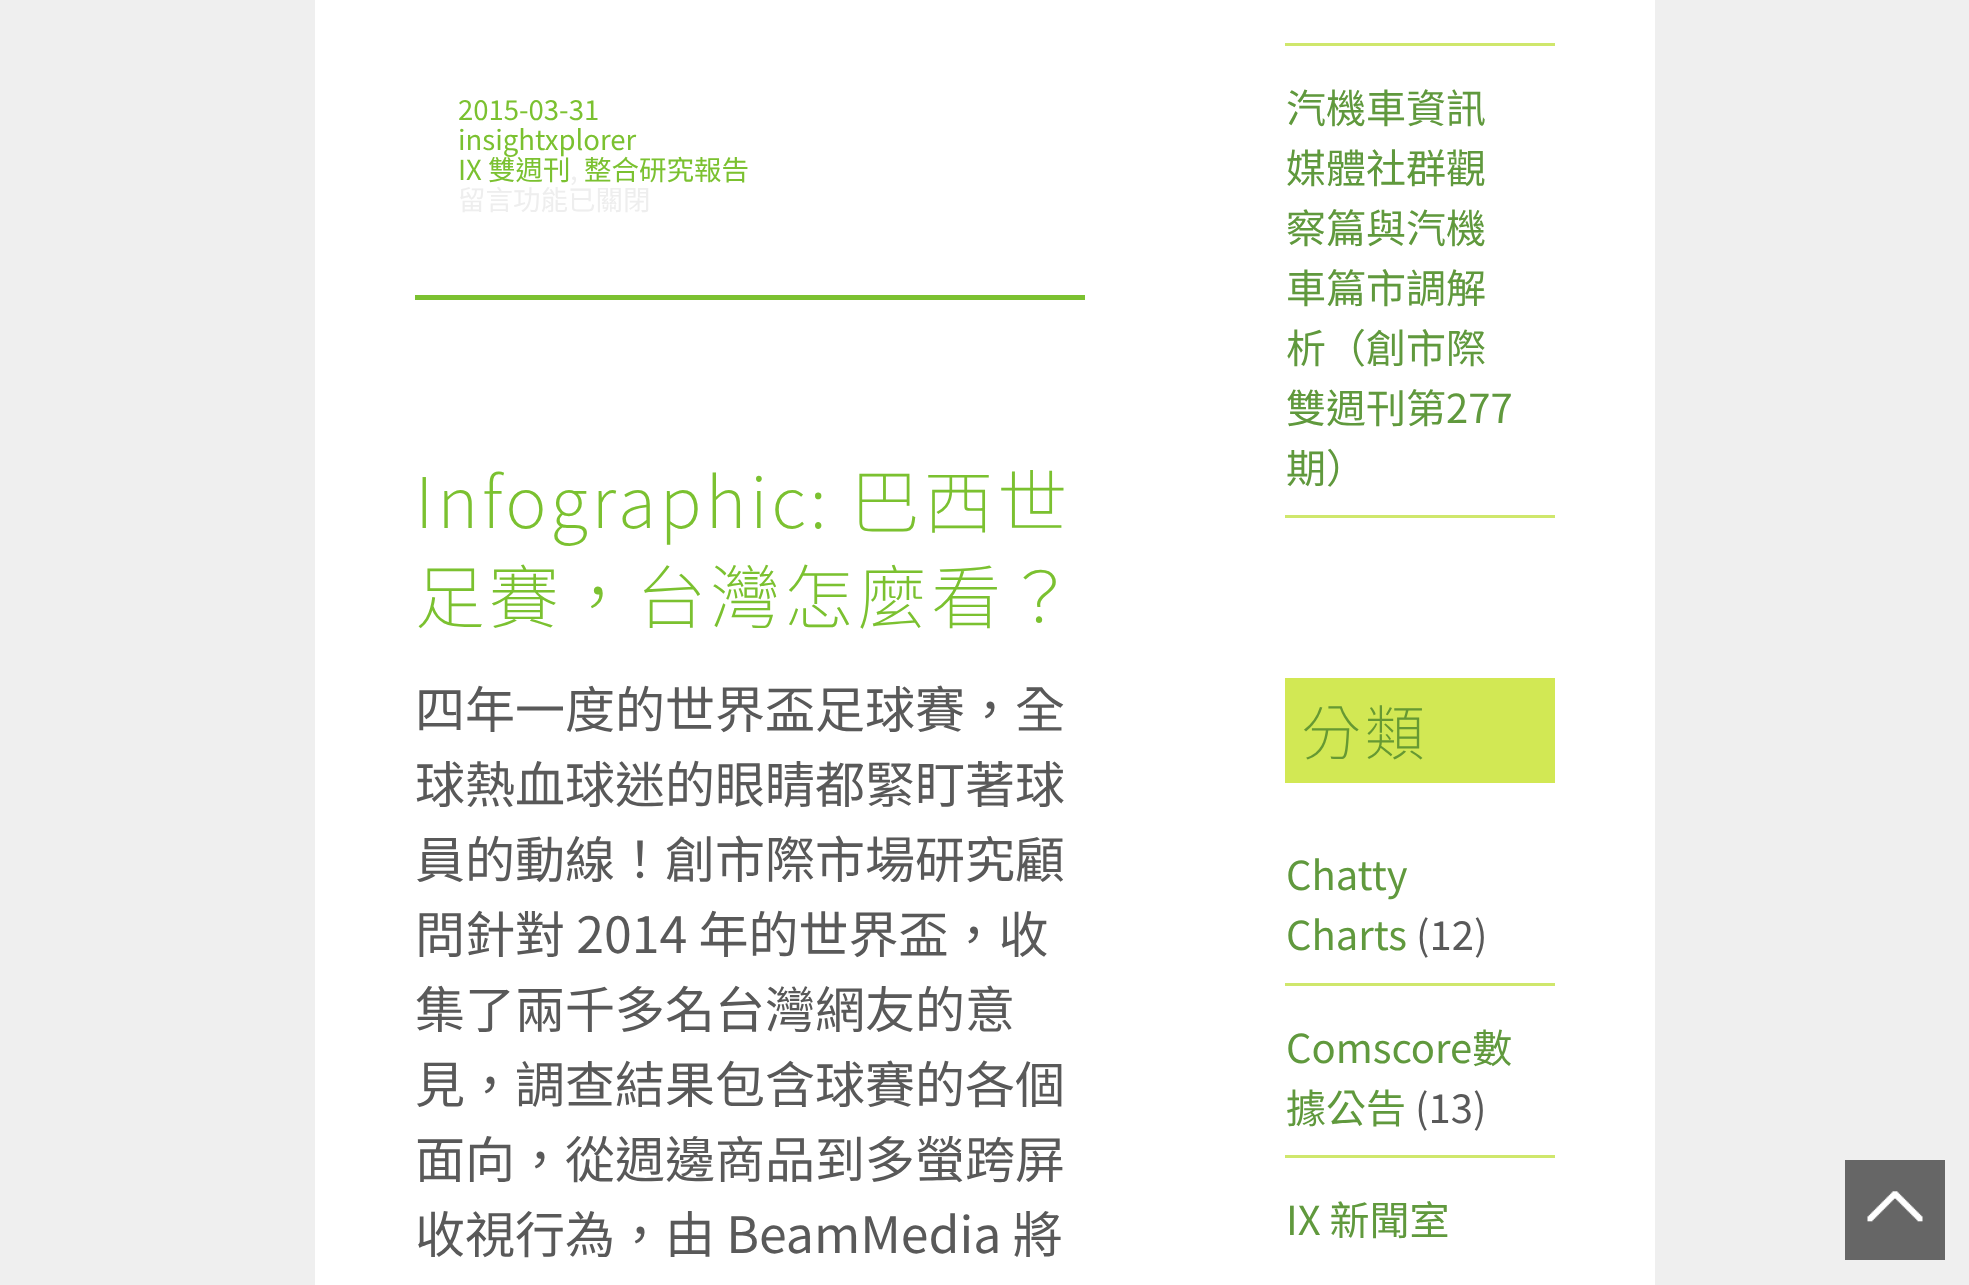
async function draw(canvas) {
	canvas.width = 1969;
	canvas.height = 1285;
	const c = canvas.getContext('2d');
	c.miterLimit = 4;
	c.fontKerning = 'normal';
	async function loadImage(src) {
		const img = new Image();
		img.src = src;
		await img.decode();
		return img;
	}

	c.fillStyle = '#efefef';
	c.fillRect(0, 0, 1969, 1285);
	c.fillStyle = '#fff';
	c.fillRect(315, 0, 1340, 1285);
	c.fillStyle = '#7bc130';
	c.fillRect(415, 295, 670, 5);
	c.font = '27.5px Noto Sans TC';
	for (const [text, x, y] of [
		['2015-03-31', 458, 120],
		['insightxplorer', 458, 150],
		['IX 雙週刊', 458, 180],
	]) {
		c.fillText(text, x, y);
	}
	c.fillStyle = '#eee';
	c.fillText(',', 570, 180);
	c.fillStyle = '#7bc130';
	c.fillText('整合研究報告', 584, 180);
	c.fillStyle = '#eee';
	c.fillText('留言功能已關閉', 458, 210);
	c.letterSpacing = '3.75px';
	c.font = '200 70px Noto Sans TC';
	c.fillStyle = '#7bc130';
	c.fillText('Infographic: 巴西世', 415, 528);
	c.fillText('足賽，台灣怎麼看？', 415, 623);
	c.letterSpacing = '0px';
	c.font = '50px Noto Sans TC';
	c.fillStyle = '#595959';
	for (const [text, x, y] of [
		['四年一度的世界盃足球賽，全', 415, 728],
		['球熱血球迷的眼睛都緊盯著球', 415, 803],
		['員的動線！創市際市場研究顧', 415, 878],
		['問針對 2014 年的世界盃，收', 415, 953],
		['集了兩千多名台灣網友的意', 415, 1028],
		['見，調查結果包含球賽的各個', 415, 1103],
		['面向，從週邊商品到多螢跨屏', 415, 1178],
		['收視行為，由 BeamMedia 將', 415, 1253],
	]) {
		c.fillText(text, x, y);
	}
	c.fillStyle = '#cfe76c';
	c.fillRect(1285, 43, 270, 3);
	c.fillRect(1285, 515, 270, 3);
	c.font = '40px Noto Sans TC';
	c.fillStyle = '#60993d';
	for (const [text, x, y] of [
		['汽機車資訊', 1286, 123],
		['媒體社群觀', 1286, 183],
		['察篇與汽機', 1286, 243],
		['車篇市調解', 1286, 303],
		['析（創市際', 1286, 363],
		['雙週刊第277', 1286, 423],
		['期）', 1286, 483],
	]) {
		c.fillText(text, x, y);
	}
	c.fillStyle = '#d2e854';
	c.fillRect(1285, 678, 270, 105);
	c.letterSpacing = '3.75px';
	c.font = '200 60px Noto Sans TC';
	c.fillStyle = '#693';
	c.fillText('分類', 1301, 755);
	c.fillStyle = '#cfe76c';
	c.fillRect(1285, 983, 270, 3);
	c.letterSpacing = '0px';
	c.font = '40px Noto Sans TC';
	c.fillStyle = '#60993d';
	c.fillText('Chatty', 1286, 890);
	c.fillText('Charts', 1286, 950);
	c.fillStyle = '#595959';
	c.fillText('(12)', 1416, 950);
	c.fillStyle = '#cfe76c';
	c.fillRect(1285, 1155, 270, 3);
	c.fillStyle = '#60993d';
	c.fillText('Comscore數', 1286, 1063);
	c.fillText('據公告', 1286, 1123);
	c.fillStyle = '#595959';
	c.fillText('(13)', 1415, 1123);
	c.fillStyle = '#60993d';
	c.fillText('IX 新聞室', 1286, 1235);
	c.drawImage(await loadImage('img1.png'), 1845, 1160, 100, 100);
}

draw(document.querySelector('canvas'));
